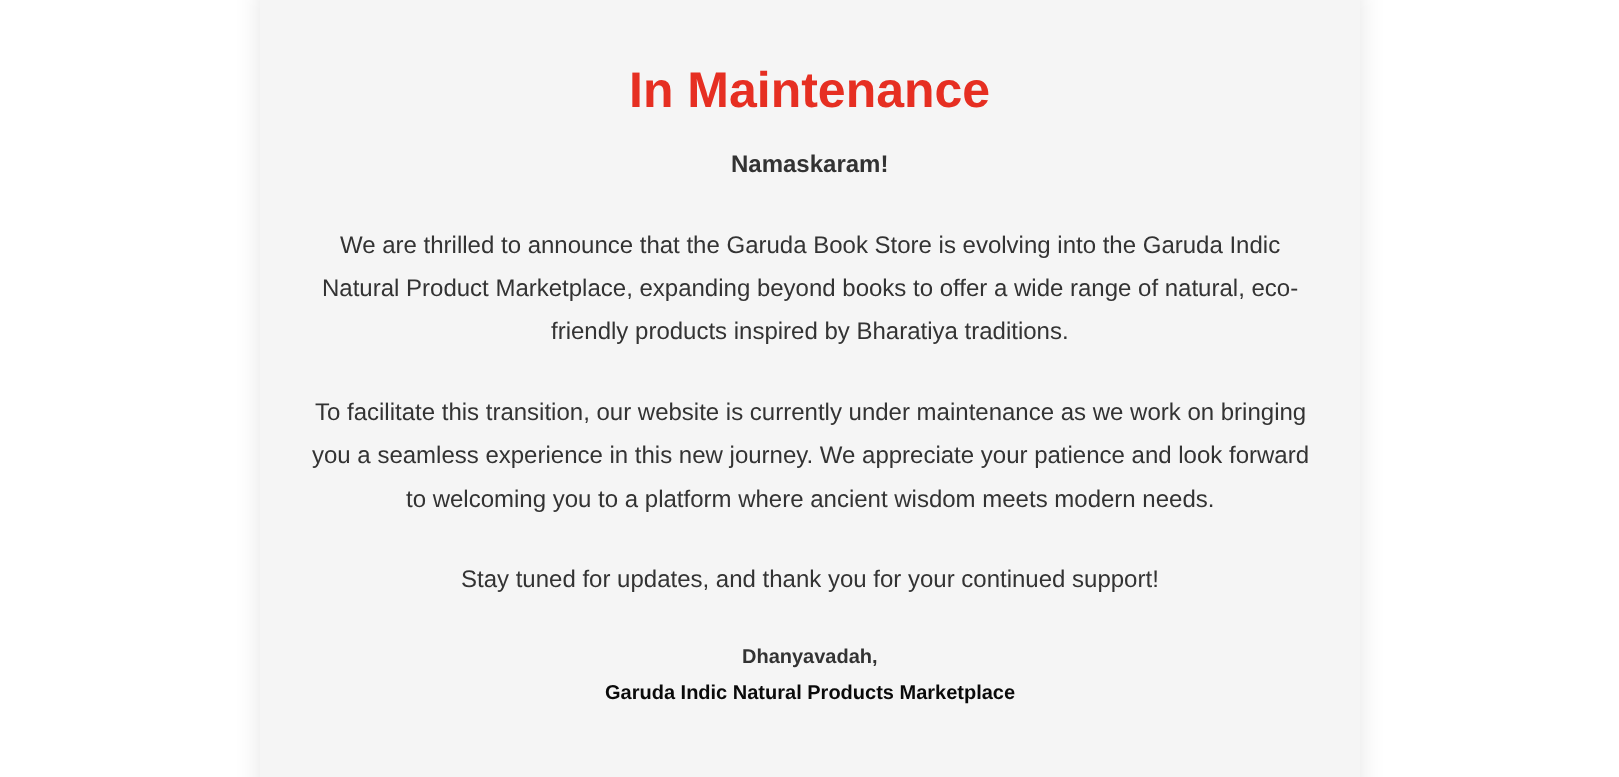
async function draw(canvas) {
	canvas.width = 1619;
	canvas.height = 777;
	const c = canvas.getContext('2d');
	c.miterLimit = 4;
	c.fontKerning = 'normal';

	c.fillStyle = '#fff';
	c.fillRect(0, 0, 1619, 777);
	c.fillStyle = '#0000001a';
	c.filter = 'blur(12.5px)';
	c.beginPath();
	c.roundRect(260, -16, 1100, 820, 13);
	c.fill();
	c.filter = 'none';
	c.fillStyle = '#f5f5f5';
	c.fillRect(260, 0, 1100, 777);
	c.font = 'bold 50px Liberation Sans';
	c.fillStyle = '#e62f22';
	c.fillText('In Maintenance', 629, 107);
	c.font = 'bold 24px Liberation Sans';
	c.fillStyle = '#333';
	c.fillText('Namaskaram!', 731, 172);
	c.font = '24px Liberation Sans';
	for (const [text, x, y] of [
		['We are thrilled to announce that the Garuda Book Store is evolving into the Garuda Indic', 340, 253],
		['Natural Product Marketplace, expanding beyond books to offer a wide range of natural, eco-', 322, 296],
		['friendly products inspired by Bharatiya traditions.', 551, 339],
		['To facilitate this transition, our website is currently under maintenance as we work on bringing', 315, 420],
		['you a seamless experience in this new journey. We appreciate your patience and look forward', 312, 463],
		['to welcoming you to a platform where ancient wisdom meets modern needs.', 406, 507],
		['Stay tuned for updates, and thank you for your continued support!', 461, 587],
	]) {
		c.fillText(text, x, y);
	}
	c.font = 'bold 20px Liberation Sans';
	c.fillText('Dhanyavadah,', 742, 663);
	c.fillStyle = '#0a0a0a';
	c.fillText('Garuda Indic Natural Products Marketplace', 605, 699);
}

draw(document.querySelector('canvas'));
